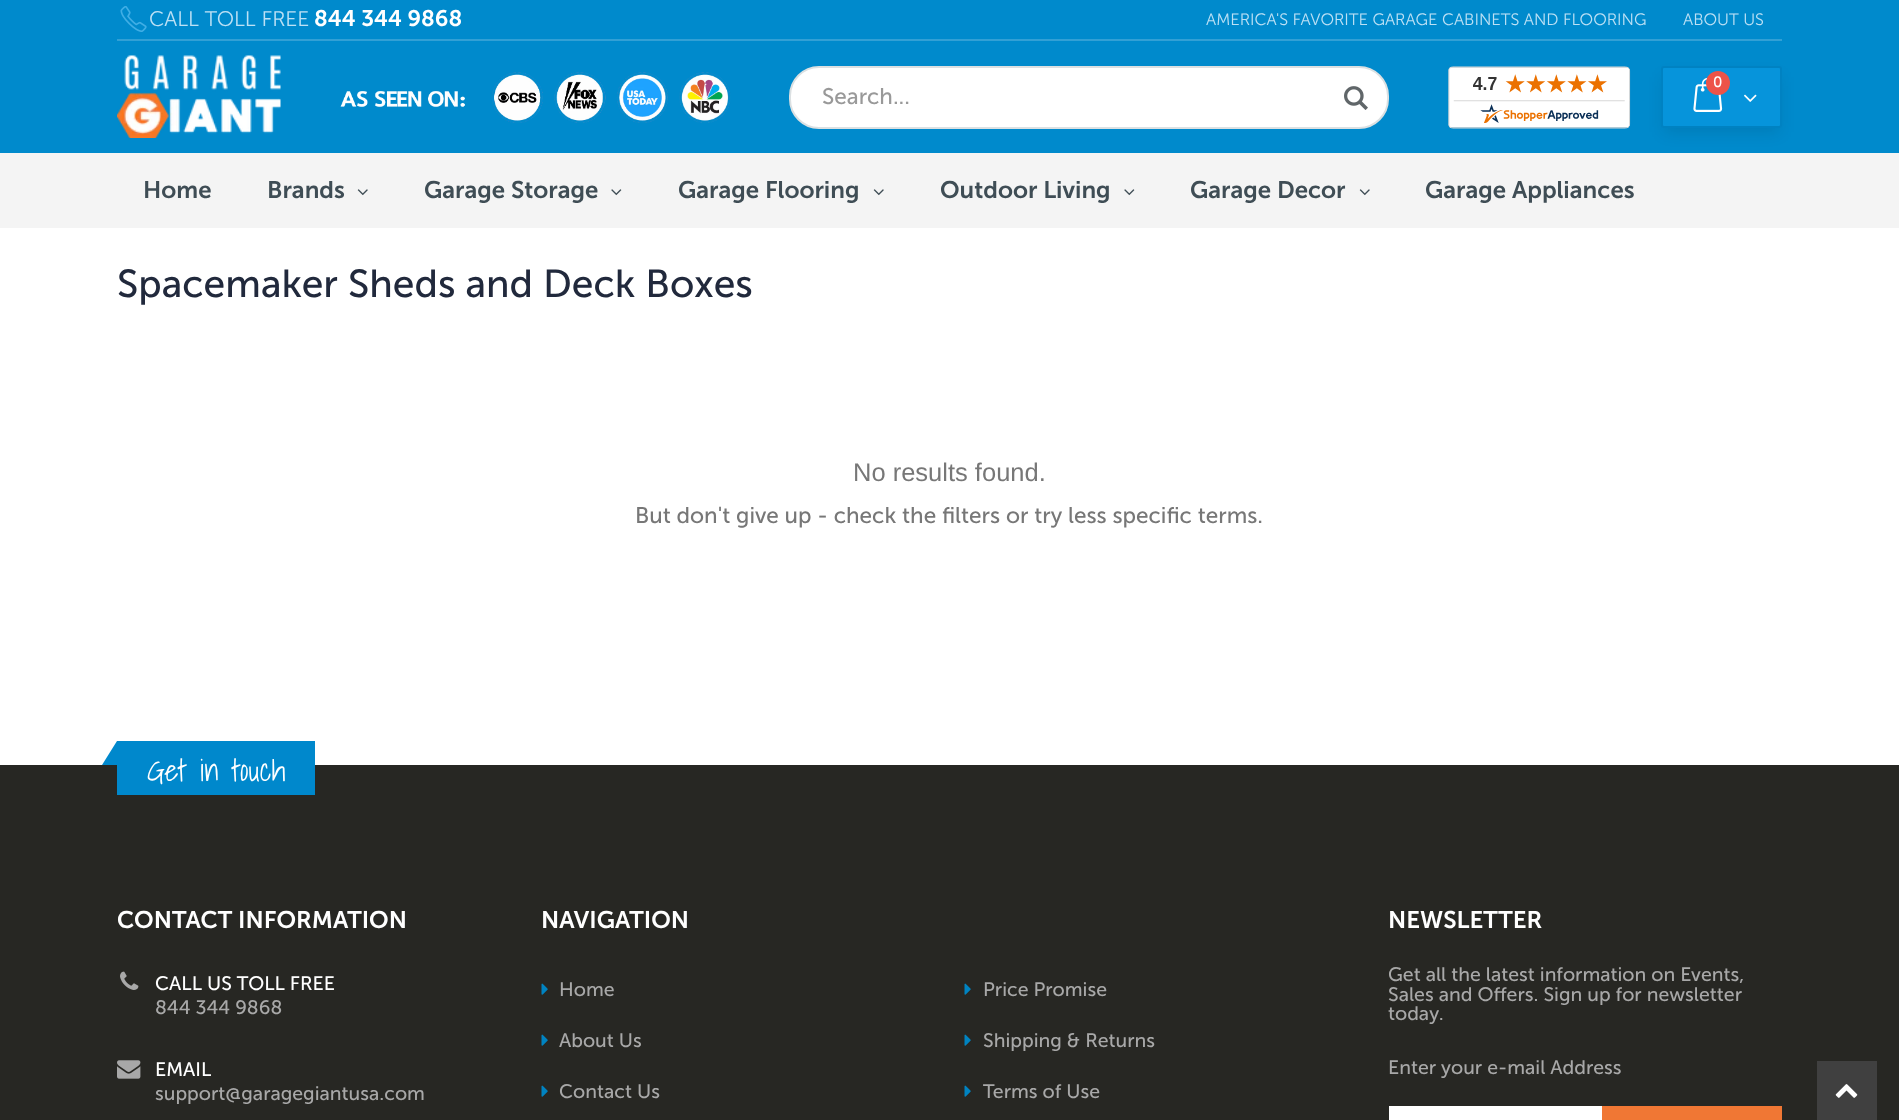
async function draw(canvas) {
	canvas.width = 1899;
	canvas.height = 1120;
	const c = canvas.getContext('2d');
	c.miterLimit = 4;
	c.fontKerning = 'normal';
	async function loadImage(src) {
		const img = new Image();
		img.src = src;
		await img.decode();
		return img;
	}

	c.fillStyle = '#fff';
	c.fillRect(0, 0, 1899, 1120);
	c.fillStyle = '#008acc';
	c.fillRect(0, 0, 1899, 153);
	c.fillStyle = '#32a0d5';
	c.fillRect(117, 39, 1665, 2);
	c.drawImage(await loadImage('img1.png'), 120, 6, 27, 26);
	c.font = '300 21px Museo Sans';
	c.fillStyle = '#bde1f5';
	c.fillText('CALL TOLL FREE', 149, 26);
	c.font = '600 22.5px Museo Sans';
	c.fillStyle = '#fff';
	c.fillText('844 344 9868', 314, 26);
	c.font = '300 16.5px Museo Sans';
	c.fillStyle = '#bde1f5';
	c.fillText('AMERICA\'S FAVORITE GARAGE CABINETS AND FLOORING', 1206, 25);
	c.fillText('ABOUT US', 1683, 25);
	c.drawImage(await loadImage('img2.png'), 117, 55, 164, 83);
	c.drawImage(await loadImage('img3.png'), 340, 72, 391, 51);
	c.drawImage(await loadImage('img4.png'), 1448, 66, 183, 63);
	c.fillStyle = '#f4f4f4';
	c.fillRect(0, 153, 1899, 75);
	c.fillStyle = '#0000001a';
	c.filter = 'blur(8px)';
	c.beginPath();
	c.rect(1664, 77, 115, 55);
	c.fill();
	c.filter = 'none';
	c.fillStyle = '#0694db';
	c.beginPath();
	c.roundRect(1662, 67, 119, 60, 2);
	c.fill();
	c.strokeStyle = '#0082c2';
	c.lineWidth = 2;
	c.stroke();
	c.drawImage(await loadImage('img5.png'), 1693, 77, 30, 35);
	c.fillStyle = '#ed5348';
	c.beginPath();
	c.arc(1718, 83, 12, 0, 2 * Math.PI);
	c.fill();
	c.font = '15px Museo Sans';
	c.fillStyle = '#fff';
	c.fillText('0', 1713, 87);
	c.drawImage(await loadImage('img6.png'), 1744, 94, 13, 8);
	c.beginPath();
	c.roundRect(790, 67, 598, 61, 29);
	c.fill();
	c.strokeStyle = '#dbe0e2';
	c.stroke();
	c.font = '22.5px Museo Sans';
	c.fillStyle = '#999';
	c.fillText('Search...', 822, 104);
	c.drawImage(await loadImage('img7.png'), 1344, 86, 24, 24);
	c.font = '600 24px Museo Sans';
	c.fillStyle = '#3f4d55';
	c.fillText('Home', 143, 198);
	c.fillText('Brands', 267, 198);
	c.drawImage(await loadImage('img8.png'), 357, 189, 11, 7);
	c.fillText('Garage Storage', 424, 198);
	c.drawImage(await loadImage('img9.png'), 611, 189, 11, 7);
	c.fillText('Garage Flooring', 678, 198);
	c.drawImage(await loadImage('img8.png'), 873, 189, 11, 7);
	c.fillText('Outdoor Living', 940, 198);
	c.drawImage(await loadImage('img9.png'), 1124, 189, 11, 7);
	c.fillText('Garage Decor', 1190, 198);
	c.drawImage(await loadImage('img8.png'), 1359, 189, 11, 7);
	c.fillText('Garage Appliances', 1425, 198);
	c.font = '39px Museo Sans';
	c.fillStyle = '#21293c';
	c.fillText('Spacemaker Sheds and Deck Boxes', 117, 297);
	c.font = '25.5px Liberation Sans';
	c.fillStyle = '#777';
	c.fillText('No results found.', 853, 481);
	c.font = '22.5px Museo Sans';
	c.fillText('But don\'t give up - check the filters or try less specific terms.', 635, 523);
	c.fillStyle = '#272723';
	c.fillRect(0, 765, 1899, 355);
	c.fillStyle = '#08c';
	c.fillRect(117, 741, 198, 54);
	c.beginPath();
	c.moveTo(117, 741);
	c.lineTo(117, 765);
	c.lineTo(102, 765);
	c.closePath();
	c.fill();
	c.font = '300 30px Shadows Into Light';
	c.fillStyle = '#fff';
	c.fillText('Get in touch', 147, 781);
	c.font = '600 24px Museo Sans';
	c.fillText('CONTACT INFORMATION', 117, 928);
	c.drawImage(await loadImage('img10.png'), 120, 971, 19, 19);
	c.font = '19.5px Museo Sans';
	c.fillText('CALL US TOLL FREE', 155, 990);
	c.fillStyle = '#a8a8a8';
	c.fillText('844 344 9868', 155, 1014);
	c.drawImage(await loadImage('img11.png'), 117, 1060, 24, 19);
	c.fillStyle = '#fff';
	c.fillText('EMAIL', 155, 1076);
	c.fillStyle = '#a8a8a8';
	c.fillText('support@garagegiantusa.com', 155, 1100);
	c.font = '600 24px Museo Sans';
	c.fillStyle = '#fff';
	c.fillText('NAVIGATION', 541, 928);
	c.drawImage(await loadImage('img12.png'), 541, 983, 7, 12);
	c.font = '19.5px Museo Sans';
	c.fillStyle = '#a8a8a8';
	c.fillText('Home', 559, 996);
	c.drawImage(await loadImage('img12.png'), 541, 1034, 7, 12);
	c.fillText('About Us', 559, 1047);
	c.drawImage(await loadImage('img12.png'), 541, 1085, 7, 12);
	c.fillText('Contact Us', 559, 1098);
	c.drawImage(await loadImage('img12.png'), 964, 983, 7, 12);
	c.fillText('Price Promise', 983, 996);
	c.drawImage(await loadImage('img12.png'), 964, 1034, 7, 12);
	c.fillText('Shipping & Returns', 983, 1047);
	c.drawImage(await loadImage('img12.png'), 964, 1085, 7, 12);
	c.fillText('Terms of Use', 983, 1098);
	c.font = '600 24px Museo Sans';
	c.fillStyle = '#fff';
	c.fillText('NEWSLETTER', 1388, 928);
	c.font = '19.5px Museo Sans';
	c.fillStyle = '#a8a8a8';
	for (const [text, x, y] of [
		['Get all the latest information on Events,', 1388, 981],
		['Sales and Offers. Sign up for newsletter', 1388, 1001],
		['today.', 1388, 1020],
		['Enter your e-mail Address', 1388, 1074],
	]) {
		c.fillText(text, x, y);
	}
	for (const [x, y, w, h, color] of [
		[1389, 1106, 213, 14, '#fff'],
		[1602, 1106, 180, 14, '#f07734'],
		[1817, 1061, 60, 59, '#404040'],
	]) {
		c.fillStyle = color;
		c.fillRect(x, y, w, h);
	}
	c.drawImage(await loadImage('img13.png'), 1835, 1084, 23, 14);
}

draw(document.querySelector('canvas'));
